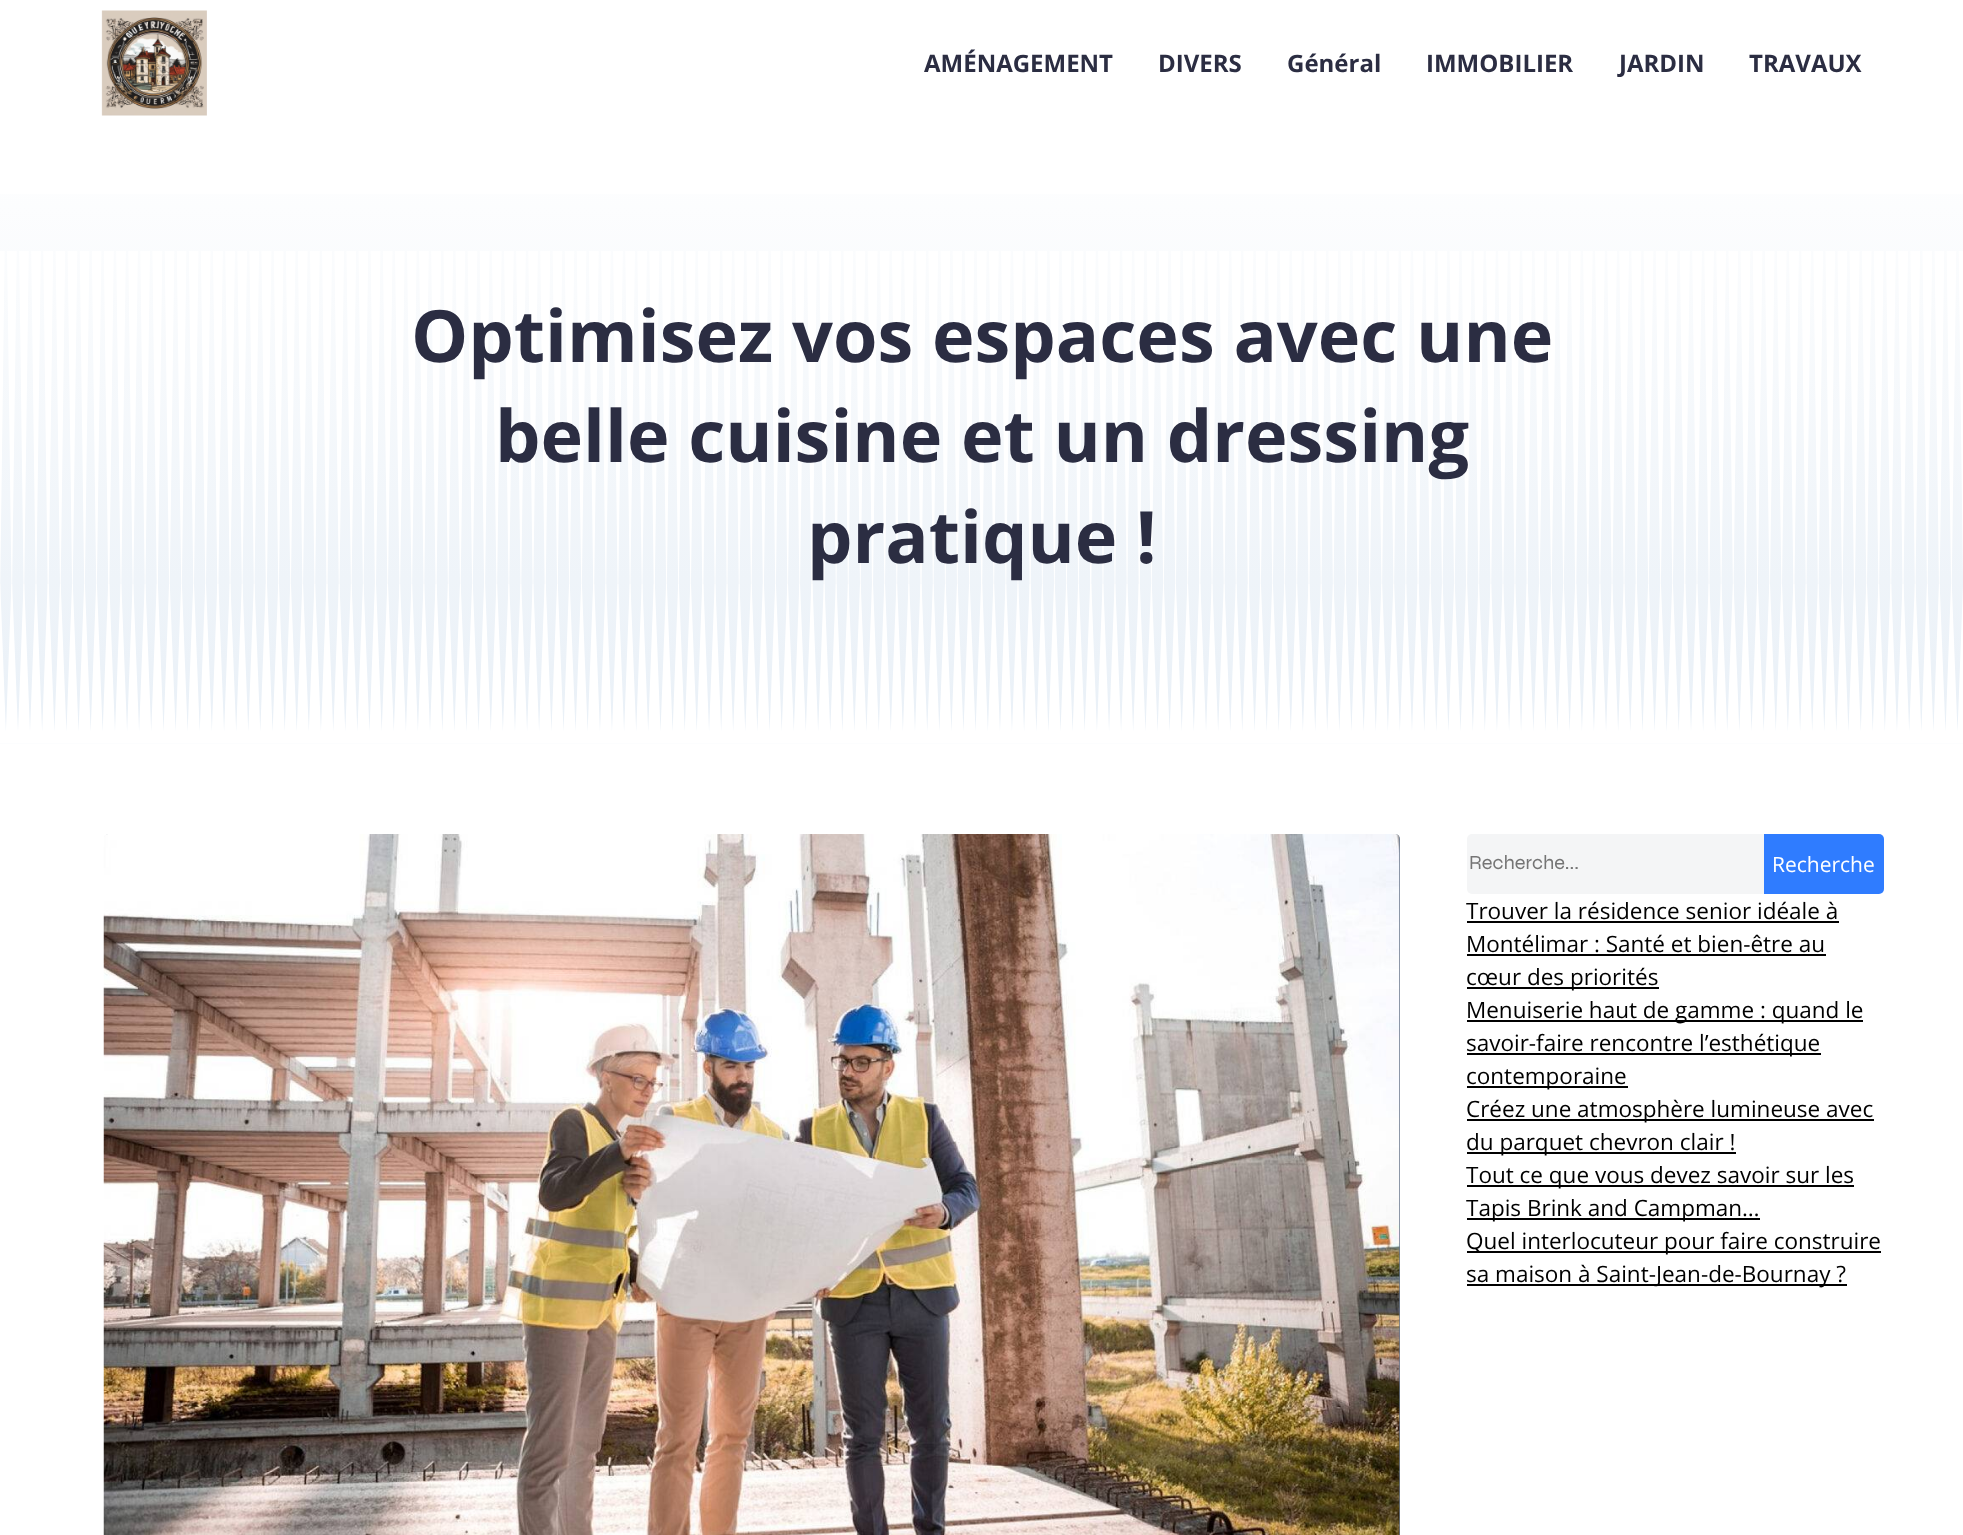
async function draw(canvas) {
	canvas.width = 1963;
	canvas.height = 1535;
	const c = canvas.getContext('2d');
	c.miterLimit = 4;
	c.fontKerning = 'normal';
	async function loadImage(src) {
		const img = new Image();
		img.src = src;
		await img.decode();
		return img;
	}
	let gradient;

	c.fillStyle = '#fff';
	c.fillRect(0, 0, 1963, 1535);
	c.drawImage(await loadImage('img1.png'), 101, 10, 106, 106);
	c.font = 'bold 24px Open Sans';
	c.fillStyle = '#2b2d42';
	for (const [text, x, y] of [
		['AMÉNAGEMENT', 924, 72],
		['DIVERS', 1158, 72],
		['Général', 1287, 72],
		['IMMOBILIER', 1426, 72],
		['JARDIN', 1619, 72],
		['TRAVAUX', 1749, 72],
	]) {
		c.fillText(text, x, y);
	}
	gradient = c.createLinearGradient(982, 747, 982, 123);
	gradient.addColorStop(0, '#e9f0f7');
	gradient.addColorStop(1, '#fff');
	c.fillStyle = gradient;
	c.fillRect(0, 194, 1963, 550);
	c.drawImage(await loadImage('img2.png'), 0, 251, 1963, 352);
	c.font = 'bold 72px Open Sans';
	c.fillStyle = '#2b2d42';
	for (const [text, x, y] of [
		['Optimisez vos espaces avec une', 411, 362],
		['belle cuisine et un dressing', 495, 462],
		['pratique !', 807, 563],
	]) {
		c.fillText(text, x, y);
	}
	c.drawImage(await loadImage('img3.png'), 0, 584, 1963, 160);
	c.fillStyle = '#69768b';
	c.beginPath();
	c.roundRect(104, 834, 1296, 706, 5);
	c.fill();
	c.drawImage(await loadImage('img4.png'), 103, 834, 1297, 701);
	c.fillStyle = '#f4f5f6';
	c.beginPath();
	c.roundRect(1467, 834, 297, 60, [5, 0, 0, 5]);
	c.fill();
	c.font = '20px Syne';
	c.fillStyle = '#757575';
	c.fillText('Recherche...', 1469, 869);
	c.fillStyle = '#2f7cff';
	c.beginPath();
	c.roundRect(1764, 834, 120, 60, [0, 5, 5, 0]);
	c.fill();
	c.font = '21px Open Sans';
	c.fillStyle = '#fff';
	c.fillText('Recherche', 1772, 872);
	c.font = '22.5px Open Sans';
	c.fillStyle = '#000';
	c.fillText('Trouver la résidence senior idéale à', 1466, 919);
	c.fillRect(1467, 921, 372, 2);
	c.fillText('Montélimar : Santé et bien-être au', 1466, 952);
	c.fillRect(1467, 954, 359, 2);
	c.fillRect(1467, 987, 192, 2);
	c.fillText('cœur des priorités', 1466, 985);
	c.fillRect(1467, 1020, 396, 2);
	c.fillText('Menuiserie haut de gamme : quand le', 1466, 1018);
	c.fillRect(1467, 1053, 354, 2);
	c.fillText('savoir-faire rencontre l’esthétique', 1466, 1051);
	c.fillRect(1467, 1086, 161, 2);
	c.fillText('contemporaine', 1466, 1084);
	c.fillRect(1467, 1119, 407, 2);
	c.fillText('Créez une atmosphère lumineuse avec', 1466, 1117);
	c.fillRect(1467, 1152, 269, 2);
	c.fillText('du parquet chevron clair !', 1466, 1150);
	c.fillRect(1467, 1185, 387, 2);
	c.fillText('Tout ce que vous devez savoir sur les', 1466, 1183);
	c.fillRect(1467, 1218, 293, 2);
	c.fillText('Tapis Brink and Campman…', 1466, 1216);
	c.fillRect(1467, 1251, 414, 2);
	c.fillText('Quel interlocuteur pour faire construire', 1466, 1249);
	c.fillRect(1467, 1284, 380, 2);
	c.fillText('sa maison à Saint-Jean-de-Bournay ?', 1466, 1282);
}

draw(document.querySelector('canvas'));
